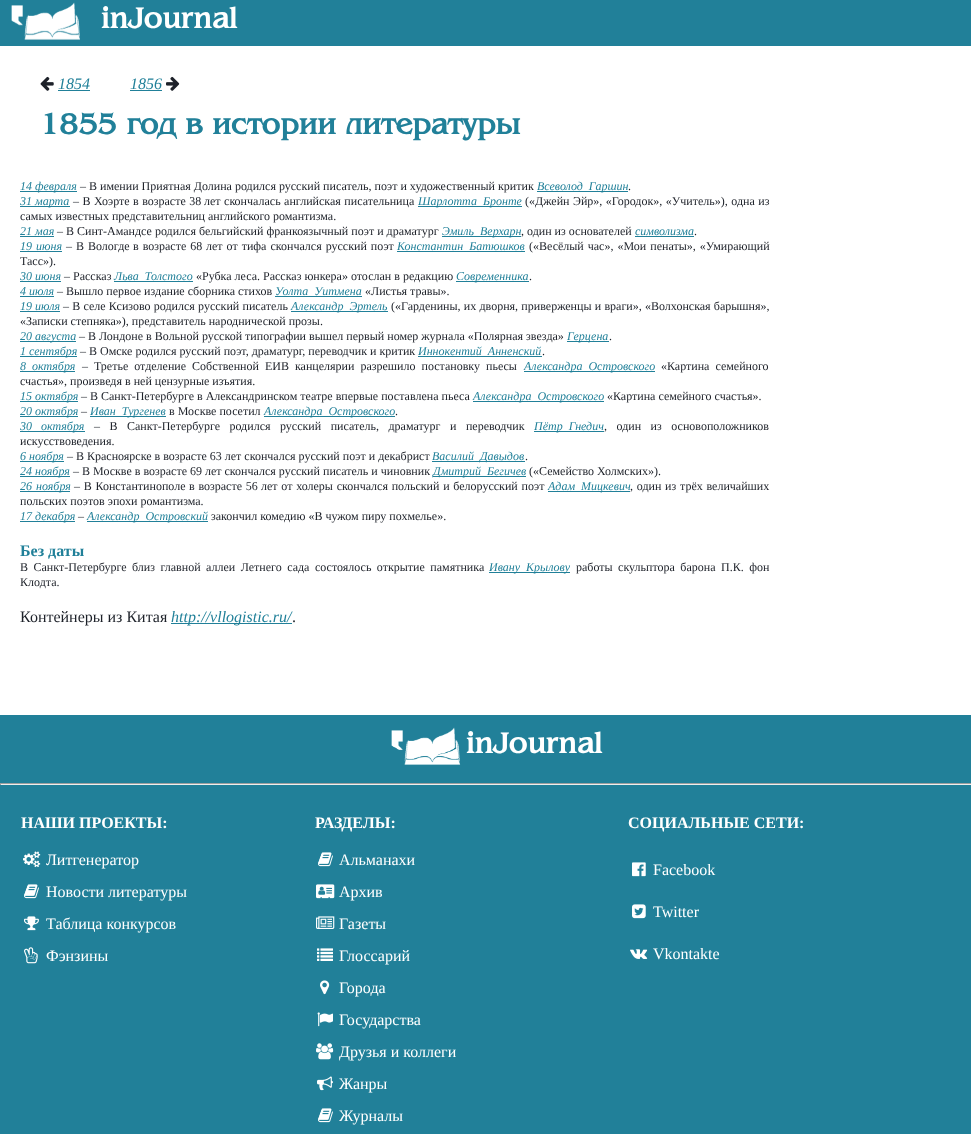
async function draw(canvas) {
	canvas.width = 971;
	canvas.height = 1134;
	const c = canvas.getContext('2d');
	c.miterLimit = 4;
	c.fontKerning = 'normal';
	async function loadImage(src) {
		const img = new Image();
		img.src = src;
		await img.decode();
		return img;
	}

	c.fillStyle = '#fff';
	c.fillRect(0, 0, 971, 1134);
	c.fillStyle = '#218099';
	c.fillRect(0, 0, 971, 46);
	c.drawImage(await loadImage('img1.png'), 11, 2, 69, 38);
	c.font = 'bold 30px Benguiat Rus';
	c.fillStyle = '#fff';
	c.fillText('inJournal', 101, 28);
	c.drawImage(await loadImage('img2.png'), 40, 76, 14, 15);
	c.font = 'italic 16px Liberation Serif';
	c.fillStyle = '#218099';
	c.fillText('1854', 58, 89);
	c.fillRect(58, 90, 32, 1);
	c.fillText('1856', 130, 89);
	c.fillRect(130, 90, 32, 1);
	c.drawImage(await loadImage('img3.png'), 166, 76, 14, 15);
	c.font = 'bold 30px Benguiat Rus';
	c.fillText('1855 год в истории литературы', 40, 134);
	c.fillRect(20, 191, 57, 1);
	c.font = 'italic 12px Liberation Serif';
	c.fillText('14 февраля', 20, 190);
	c.font = '12px Liberation Serif';
	c.fillStyle = '#1d2129';
	c.fillText('– В имении Приятная Долина родился русский писатель, поэт и художественный критик', 80, 190);
	c.fillStyle = '#218099';
	c.fillRect(537, 191, 91, 1);
	c.font = 'italic 12px Liberation Serif';
	c.fillText('Всеволод Гаршин', 537, 190);
	c.font = '12px Liberation Serif';
	c.fillStyle = '#1d2129';
	c.fillText('.', 628, 190);
	c.font = 'italic 12px Liberation Serif';
	c.fillStyle = '#218099';
	c.fillText('31', 20, 205);
	c.fillRect(20, 206, 50, 1);
	c.fillText('марта', 35, 205);
	c.wordSpacing = '0.5px';
	c.font = '12px Liberation Serif';
	c.fillStyle = '#1d2129';
	for (const [text, x, y] of [
		['– В Хоэрте', 73, 205],
		['в возрасте 38', 133, 205],
		['лет скончалась английская писательница', 204, 205],
	]) {
		c.fillText(text, x, y);
	}
	c.fillStyle = '#218099';
	c.fillRect(418, 206, 104, 1);
	c.wordSpacing = '0px';
	c.font = 'italic 12px Liberation Serif';
	c.fillText('Шарлотта Бронте', 418, 205);
	c.wordSpacing = '0.5px';
	c.font = '12px Liberation Serif';
	c.fillStyle = '#1d2129';
	c.fillText('(«Джейн Эйр», «Городок», «Учитель»), одна из', 525, 205);
	c.wordSpacing = '0px';
	c.fillText('самых известных представительниц английского романтизма.', 20, 220);
	c.font = 'italic 12px Liberation Serif';
	c.fillStyle = '#218099';
	c.fillText('21 мая', 20, 235);
	c.fillRect(20, 236, 34, 1);
	c.font = '12px Liberation Serif';
	c.fillStyle = '#1d2129';
	c.fillText('– В Синт-Амандсе родился бельгийский франкоязычный поэт и драматург', 57, 235);
	c.fillStyle = '#218099';
	c.fillRect(442, 236, 79, 1);
	c.font = 'italic 12px Liberation Serif';
	c.fillText('Эмиль Верхарн', 442, 235);
	c.font = '12px Liberation Serif';
	c.fillStyle = '#1d2129';
	c.fillText(', один из основателей', 521, 235);
	c.font = 'italic 12px Liberation Serif';
	c.fillStyle = '#218099';
	c.fillText('символизма', 635, 235);
	c.fillRect(635, 236, 59, 1);
	c.font = '12px Liberation Serif';
	c.fillStyle = '#1d2129';
	c.fillText('.', 694, 235);
	c.font = 'italic 12px Liberation Serif';
	c.fillStyle = '#218099';
	c.fillText('19', 20, 250);
	c.fillText('июня', 36, 250);
	c.fillRect(20, 251, 42, 1);
	c.wordSpacing = '1px';
	c.font = '12px Liberation Serif';
	c.fillStyle = '#1d2129';
	for (const [text, x, y] of [
		['– В Вологде', 66, 250],
		['в возрасте 68', 133, 250],
		['лет от тифа скончался русский поэт', 206, 250],
	]) {
		c.fillText(text, x, y);
	}
	c.wordSpacing = '0px';
	c.font = 'italic 12px Liberation Serif';
	c.fillStyle = '#218099';
	c.fillText('Константин Батюшков', 397, 250);
	c.fillRect(397, 251, 128, 1);
	c.wordSpacing = '1px';
	c.font = '12px Liberation Serif';
	c.fillStyle = '#1d2129';
	c.fillText('(«Весёлый час», «Мои пенаты», «Умирающий', 529, 250);
	c.wordSpacing = '0px';
	c.fillText('Тасс»).', 20, 265);
	c.font = 'italic 12px Liberation Serif';
	c.fillStyle = '#218099';
	c.fillText('30 июня', 20, 280);
	c.fillRect(20, 281, 41, 1);
	c.font = '12px Liberation Serif';
	c.fillStyle = '#1d2129';
	c.fillText('– Рассказ', 64, 280);
	c.font = 'italic 12px Liberation Serif';
	c.fillStyle = '#218099';
	c.fillText('Льва Толстого', 114, 280);
	c.fillRect(114, 281, 79, 1);
	c.font = '12px Liberation Serif';
	c.fillStyle = '#1d2129';
	c.fillText('«Рубка леса. Рассказ юнкера» отослан в редакцию', 196, 280);
	c.fillStyle = '#218099';
	c.fillRect(456, 281, 73, 1);
	c.font = 'italic 12px Liberation Serif';
	c.fillText('Современника', 456, 280);
	c.font = '12px Liberation Serif';
	c.fillStyle = '#1d2129';
	c.fillText('.', 529, 280);
	c.font = 'italic 12px Liberation Serif';
	c.fillStyle = '#218099';
	c.fillText('4 июля', 20, 295);
	c.fillRect(20, 296, 34, 1);
	c.font = '12px Liberation Serif';
	c.fillStyle = '#1d2129';
	c.fillText('– Вышло первое издание сборника стихов', 57, 295);
	c.font = 'italic 12px Liberation Serif';
	c.fillStyle = '#218099';
	c.fillText('Уолта Уитмена', 275, 295);
	c.fillRect(275, 296, 87, 1);
	c.font = '12px Liberation Serif';
	c.fillStyle = '#1d2129';
	c.fillText('«Листья травы».', 365, 295);
	c.font = 'italic 12px Liberation Serif';
	c.fillStyle = '#218099';
	c.fillText('19 июля', 20, 310);
	c.fillRect(20, 311, 40, 1);
	c.wordSpacing = '0.25px';
	c.font = '12px Liberation Serif';
	c.fillStyle = '#1d2129';
	c.fillText('– В селе Ксизово родился русский писатель', 63, 310);
	c.fillStyle = '#218099';
	c.fillRect(291, 311, 97, 1);
	c.wordSpacing = '0px';
	c.font = 'italic 12px Liberation Serif';
	c.fillText('Александр Эртель', 291, 310);
	c.wordSpacing = '0.25px';
	c.font = '12px Liberation Serif';
	c.fillStyle = '#1d2129';
	c.fillText('(«Гарденины, их дворня, приверженцы и враги», «Волхонская барышня»,', 391, 310);
	c.wordSpacing = '0px';
	c.fillText('«Записки степняка»), представитель народнической прозы.', 20, 325);
	c.fillStyle = '#218099';
	c.fillRect(20, 341, 56, 1);
	c.font = 'italic 12px Liberation Serif';
	c.fillText('20 августа', 20, 340);
	c.font = '12px Liberation Serif';
	c.fillStyle = '#1d2129';
	c.fillText('– В Лондоне в Вольной русской типографии вышел первый номер журнала «Полярная звезда»', 79, 340);
	c.fillStyle = '#218099';
	c.fillRect(567, 341, 42, 1);
	c.font = 'italic 12px Liberation Serif';
	c.fillText('Герцена', 567, 340);
	c.font = '12px Liberation Serif';
	c.fillStyle = '#1d2129';
	c.fillText('.', 609, 340);
	c.fillStyle = '#218099';
	c.fillRect(20, 356, 57, 1);
	c.font = 'italic 12px Liberation Serif';
	c.fillText('1 сентября', 20, 355);
	c.font = '12px Liberation Serif';
	c.fillStyle = '#1d2129';
	c.fillText('– В Омске родился русский поэт, драматург, переводчик и критик', 80, 355);
	c.font = 'italic 12px Liberation Serif';
	c.fillStyle = '#218099';
	c.fillText('Иннокентий Анненский', 418, 355);
	c.fillRect(418, 356, 124, 1);
	c.font = '12px Liberation Serif';
	c.fillStyle = '#1d2129';
	c.fillText('.', 542, 355);
	c.font = 'italic 12px Liberation Serif';
	c.fillStyle = '#218099';
	c.fillText('8', 20, 370);
	c.fillRect(20, 371, 55, 1);
	c.fillText('октября', 32, 370);
	c.wordSpacing = '3px';
	c.font = '12px Liberation Serif';
	c.fillStyle = '#1d2129';
	c.fillText('– Третье отделение Собственной ЕИВ канцелярии разрешило постановку пьесы', 82, 370);
	c.fillStyle = '#218099';
	c.fillRect(524, 371, 131, 1);
	c.wordSpacing = '0px';
	c.font = 'italic 12px Liberation Serif';
	c.fillText('Александра Островского', 524, 370);
	c.wordSpacing = '3px';
	c.font = '12px Liberation Serif';
	c.fillStyle = '#1d2129';
	c.fillText('«Картина семейного', 661, 370);
	c.wordSpacing = '0px';
	c.fillText('счастья», произведя в ней цензурные изъятия.', 20, 385);
	c.fillStyle = '#218099';
	c.fillRect(20, 401, 58, 1);
	c.font = 'italic 12px Liberation Serif';
	c.fillText('15 октября', 20, 400);
	c.font = '12px Liberation Serif';
	c.fillStyle = '#1d2129';
	c.fillText('– В Санкт-Петербурге в Александринском театре впервые поставлена пьеса', 81, 400);
	c.fillStyle = '#218099';
	c.fillRect(473, 401, 131, 1);
	c.font = 'italic 12px Liberation Serif';
	c.fillText('Александра Островского', 473, 400);
	c.font = '12px Liberation Serif';
	c.fillStyle = '#1d2129';
	c.fillText('«Картина семейного счастья».', 607, 400);
	c.fillStyle = '#218099';
	c.fillRect(20, 416, 58, 1);
	c.font = 'italic 12px Liberation Serif';
	c.fillText('20 октября', 20, 415);
	c.font = '12px Liberation Serif';
	c.fillStyle = '#1d2129';
	c.fillText('–', 81, 415);
	c.fillStyle = '#218099';
	c.fillRect(90, 416, 76, 1);
	c.font = 'italic 12px Liberation Serif';
	c.fillText('Иван Тургенев', 90, 415);
	c.font = '12px Liberation Serif';
	c.fillStyle = '#1d2129';
	c.fillText('в Москве посетил', 169, 415);
	c.fillStyle = '#218099';
	c.fillRect(264, 416, 131, 1);
	c.font = 'italic 12px Liberation Serif';
	c.fillText('Александра Островского', 264, 415);
	c.font = '12px Liberation Serif';
	c.fillStyle = '#1d2129';
	c.fillText('.', 395, 415);
	c.font = 'italic 12px Liberation Serif';
	c.fillStyle = '#218099';
	c.fillText('30', 20, 430);
	c.fillRect(20, 431, 65, 1);
	c.fillText('октября', 41, 430);
	c.wordSpacing = '6.5px';
	c.font = '12px Liberation Serif';
	c.fillStyle = '#1d2129';
	c.fillText('– В Санкт-Петербурге родился русский писатель, драматург и переводчик', 94, 430);
	c.fillStyle = '#218099';
	c.fillRect(534, 431, 70, 1);
	c.wordSpacing = '0px';
	c.font = 'italic 12px Liberation Serif';
	c.fillText('Пётр Гнедич', 534, 430);
	c.wordSpacing = '6.5px';
	c.font = '12px Liberation Serif';
	c.fillStyle = '#1d2129';
	c.fillText(', один из основоположников', 604, 430);
	c.wordSpacing = '0px';
	c.fillText('искусствоведения.', 20, 445);
	c.fillStyle = '#218099';
	c.fillRect(20, 461, 44, 1);
	c.font = 'italic 12px Liberation Serif';
	c.fillText('6 ноября', 20, 460);
	c.font = '12px Liberation Serif';
	c.fillStyle = '#1d2129';
	c.fillText('– В Красноярске в возрасте 63 лет скончался русский поэт и декабрист', 67, 460);
	c.fillStyle = '#218099';
	c.fillRect(432, 461, 93, 1);
	c.font = 'italic 12px Liberation Serif';
	c.fillText('Василий Давыдов', 432, 460);
	c.font = '12px Liberation Serif';
	c.fillStyle = '#1d2129';
	c.fillText('.', 525, 460);
	c.fillStyle = '#218099';
	c.fillRect(20, 476, 50, 1);
	c.font = 'italic 12px Liberation Serif';
	c.fillText('24 ноября', 20, 475);
	c.font = '12px Liberation Serif';
	c.fillStyle = '#1d2129';
	c.fillText('– В Москве в возрасте 69 лет скончался русский писатель и чиновник', 73, 475);
	c.fillStyle = '#218099';
	c.fillRect(433, 476, 93, 1);
	c.font = 'italic 12px Liberation Serif';
	c.fillText('Дмитрий Бегичев', 433, 475);
	c.font = '12px Liberation Serif';
	c.fillStyle = '#1d2129';
	c.fillText('(«Семейство Холмских»).', 529, 475);
	c.font = 'italic 12px Liberation Serif';
	c.fillStyle = '#218099';
	c.fillText('26', 20, 490);
	c.fillRect(20, 491, 50, 1);
	c.fillText('ноября', 36, 490);
	c.wordSpacing = '0.75px';
	c.font = '12px Liberation Serif';
	c.fillStyle = '#1d2129';
	for (const [text, x, y] of [
		['– В Константинополе', 74, 490],
		['в возрасте 56', 189, 490],
		['лет от холеры скончался польский и белорусский поэт', 261, 490],
	]) {
		c.fillText(text, x, y);
	}
	c.fillStyle = '#218099';
	c.fillRect(548, 491, 82, 1);
	c.wordSpacing = '0px';
	c.font = 'italic 12px Liberation Serif';
	c.fillText('Адам Мицкевич', 548, 490);
	c.wordSpacing = '0.75px';
	c.font = '12px Liberation Serif';
	c.fillStyle = '#1d2129';
	c.fillText(', один из трёх величайших', 630, 490);
	c.wordSpacing = '0px';
	c.fillText('польских поэтов эпохи романтизма.', 20, 505);
	c.fillStyle = '#218099';
	c.fillRect(20, 521, 55, 1);
	c.font = 'italic 12px Liberation Serif';
	c.fillText('17 декабря', 20, 520);
	c.font = '12px Liberation Serif';
	c.fillStyle = '#1d2129';
	c.fillText('–', 78, 520);
	c.fillStyle = '#218099';
	c.fillRect(87, 521, 121, 1);
	c.font = 'italic 12px Liberation Serif';
	c.fillText('Александр Островский', 87, 520);
	c.font = '12px Liberation Serif';
	c.fillStyle = '#1d2129';
	c.fillText('закончил комедию «В чужом пиру похмелье».', 211, 520);
	c.font = 'bold 16px Liberation Serif';
	c.fillStyle = '#218099';
	c.fillText('Без даты', 20, 556);
	c.wordSpacing = '2.5px';
	c.font = '12px Liberation Serif';
	c.fillStyle = '#1d2129';
	c.fillText('В Санкт-Петербурге близ главной аллеи Летнего сада состоялось открытие памятника', 20, 571);
	c.fillStyle = '#218099';
	c.fillRect(489, 572, 81, 1);
	c.wordSpacing = '0px';
	c.font = 'italic 12px Liberation Serif';
	c.fillText('Ивану Крылову', 489, 571);
	c.wordSpacing = '2.5px';
	c.font = '12px Liberation Serif';
	c.fillStyle = '#1d2129';
	c.fillText('работы скульптора барона П.К. фон', 576, 571);
	c.wordSpacing = '0px';
	c.fillText('Клодта.', 20, 586);
	c.font = '16px Liberation Serif';
	c.fillText('Контейнеры из Китая', 20, 622);
	c.fillStyle = '#218099';
	c.fillRect(171, 623, 121, 1);
	c.font = 'italic 16px Liberation Serif';
	c.fillText('http://vllogistic.ru/', 171, 622);
	c.font = '16px Liberation Serif';
	c.fillStyle = '#1d2129';
	c.fillText('.', 292, 622);
	c.fillStyle = '#218099';
	c.fillRect(0, 715, 971, 419);
	c.drawImage(await loadImage('img4.png'), 391, 727, 70, 38);
	c.font = 'bold 30px Benguiat Rus';
	c.fillStyle = '#fff';
	c.fillText('inJournal', 466, 753);
	for (const [x, y, w, h, color] of [
		[0, 783, 971, 1, '#9f9f9f'],
		[0, 784, 971, 1, '#eee'],
		[0, 783, 1, 2, '#9f9f9f'],
	]) {
		c.fillStyle = color;
		c.fillRect(x, y, w, h);
	}
	c.font = 'bold 16px Liberation Serif';
	c.fillStyle = '#fff';
	c.fillText('НАШИ ПРОЕКТЫ:', 21, 828);
	c.drawImage(await loadImage('img5.png'), 23, 851, 18, 17);
	c.font = '16px Liberation Serif';
	c.fillText('Литгенератор', 46, 865);
	c.drawImage(await loadImage('img6.png'), 24, 884, 15, 15);
	c.fillText('Новости литературы', 46, 897);
	c.drawImage(await loadImage('img7.png'), 24, 916, 15, 15);
	c.fillText('Таблица конкурсов', 46, 929);
	c.drawImage(await loadImage('img8.png'), 24, 947, 14, 17);
	c.fillText('Фэнзины', 46, 961);
	c.font = 'bold 16px Liberation Serif';
	c.fillText('РАЗДЕЛЫ:', 315, 828);
	c.drawImage(await loadImage('img6.png'), 318, 852, 15, 15);
	c.font = '16px Liberation Serif';
	c.fillText('Альманахи', 339, 865);
	c.drawImage(await loadImage('img9.png'), 316, 884, 19, 15);
	c.fillText('Архив', 339, 897);
	c.drawImage(await loadImage('img10.png'), 316, 916, 19, 13);
	c.fillText('Газеты', 339, 929);
	c.drawImage(await loadImage('img11.png'), 317, 948, 16, 13);
	c.fillText('Глоссарий', 339, 961);
	c.drawImage(await loadImage('img12.png'), 320, 980, 10, 15);
	c.fillText('Города', 339, 993);
	c.drawImage(await loadImage('img13.png'), 317, 1012, 16, 15);
	c.fillText('Государства', 339, 1025);
	c.drawImage(await loadImage('img14.png'), 316, 1043, 18, 17);
	c.fillText('Друзья и коллеги', 339, 1057);
	c.drawImage(await loadImage('img15.png'), 317, 1076, 16, 15);
	c.fillText('Жанры', 339, 1089);
	c.drawImage(await loadImage('img6.png'), 318, 1108, 15, 15);
	c.fillText('Журналы', 339, 1121);
	c.font = 'bold 16px Liberation Serif';
	c.fillText('СОЦИАЛЬНЫЕ СЕТИ:', 628, 828);
	c.drawImage(await loadImage('img16.png'), 632, 862, 14, 15);
	c.font = '16px Liberation Serif';
	c.fillText('Facebook', 653, 875);
	c.drawImage(await loadImage('img17.png'), 632, 904, 14, 15);
	c.fillText('Twitter', 653, 917);
	c.drawImage(await loadImage('img18.png'), 630, 949, 18, 10);
	c.fillText('Vkontakte', 653, 959);
}

draw(document.querySelector('canvas'));
